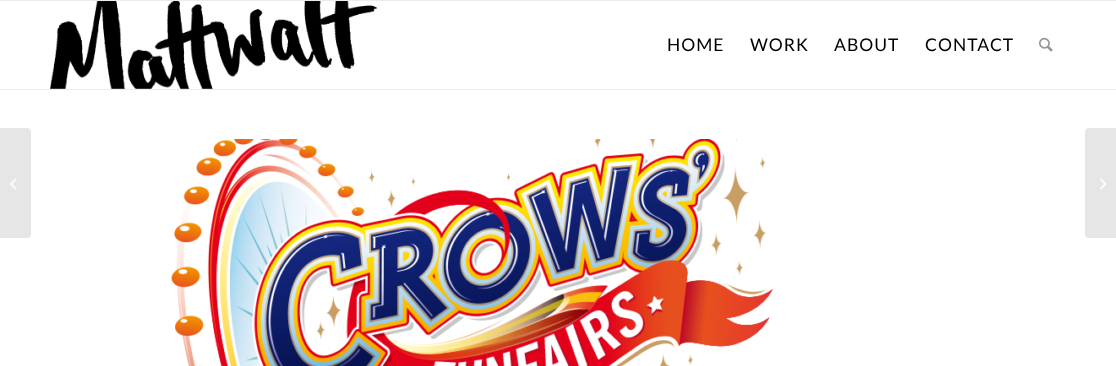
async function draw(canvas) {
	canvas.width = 1116;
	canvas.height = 366;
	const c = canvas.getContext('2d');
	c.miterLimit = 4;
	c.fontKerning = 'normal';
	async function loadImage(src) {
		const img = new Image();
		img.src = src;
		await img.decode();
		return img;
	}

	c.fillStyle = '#fff';
	c.fillRect(0, 0, 1116, 366);
	c.fillStyle = '#ebebeb';
	c.fillRect(0, 0, 1116, 1);
	c.fillRect(0, 89, 1116, 1);
	c.drawImage(await loadImage('img1.png'), 50, 1, 327, 88);
	c.letterSpacing = '1px';
	c.font = '17.5px Lato';
	c.fillStyle = '#000';
	for (const [text, x, y] of [
		['HOME', 667, 51],
		['WORK', 750, 51],
		['ABOUT', 834, 51],
		['CONTACT', 925, 51],
	]) {
		c.fillText(text, x, y);
	}
	c.drawImage(await loadImage('img2.png'), 1039, 37, 14, 15);
	c.fillStyle = '#e6e6e6';
	c.beginPath();
	c.roundRect(0, 128, 31, 110, [0, 4, 4, 0]);
	c.fill();
	c.drawImage(await loadImage('img3.png'), 10, 178, 6, 12);
	c.drawImage(await loadImage('img4.png'), 171, 139, 602, 227);
	c.beginPath();
	c.roundRect(1085, 128, 31, 110, [4, 0, 0, 4]);
	c.fill();
	c.drawImage(await loadImage('img5.png'), 1100, 178, 6, 12);
}

draw(document.querySelector('canvas'));
